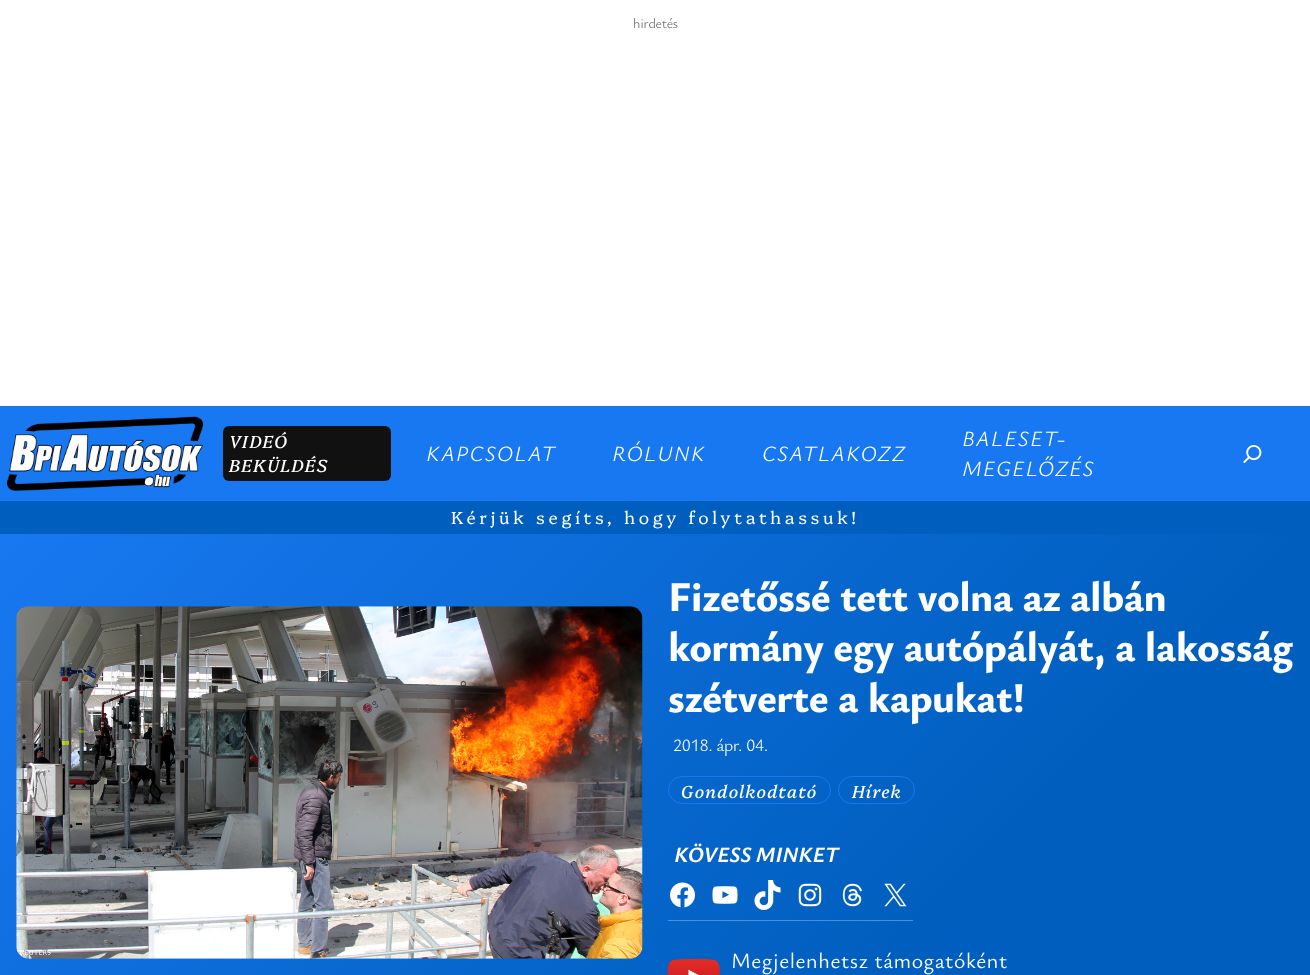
async function draw(canvas) {
	canvas.width = 1310;
	canvas.height = 975;
	const c = canvas.getContext('2d');
	c.miterLimit = 4;
	c.fontKerning = 'normal';
	async function loadImage(src) {
		const img = new Image();
		img.src = src;
		await img.decode();
		return img;
	}
	let gradient;

	c.fillStyle = '#fff';
	c.fillRect(0, 0, 1310, 975);
	c.letterSpacing = '-0.25px';
	c.font = '300 14px Ysabeau Office';
	c.fillStyle = '#686868';
	c.fillText('hirdetés', 633, 28);
	c.fillStyle = '#1878f1';
	c.fillRect(0, 406, 1310, 95);
	c.drawImage(await loadImage('img1.png'), 6, 416, 198, 75);
	c.fillStyle = '#111';
	c.beginPath();
	c.roundRect(223, 426, 168, 55, 6);
	c.fill();
	c.letterSpacing = '1.25px';
	c.font = 'italic 17.5px Platypi';
	c.fillStyle = '#fff';
	c.fillText('VIDEÓ', 229, 448);
	c.fillText('BEKÜLDÉS', 229, 472);
	c.font = 'italic 300 21.75px Ysabeau Office';
	for (const [text, x, y] of [
		['KAPCSOLAT', 426, 461],
		['RÓLUNK', 612, 461],
		['CSATLAKOZZ', 762, 461],
		['BALESET-', 962, 446],
		['MEGELŐZÉS', 962, 476],
	]) {
		c.fillText(text, x, y);
	}
	c.drawImage(await loadImage('img2.png'), 1243, 445, 19, 19);
	c.fillStyle = '#005fbe';
	c.fillRect(0, 501, 1310, 33);
	c.letterSpacing = '3.75px';
	c.font = '300 17.5px Platypi';
	c.fillStyle = '#fff';
	c.fillText('Kérjük segíts, hogy folytathassuk!', 451, 524);
	gradient = c.createLinearGradient(203, 331, 1107, 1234);
	gradient.addColorStop(0, '#1878f1');
	gradient.addColorStop(0.72, '#005fbe');
	c.fillStyle = gradient;
	c.fillRect(0, 534, 1310, 441);
	gradient = c.createLinearGradient(203, 331, 1107, 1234);
	gradient.addColorStop(0, '#5ca0f5');
	gradient.addColorStop(0.72, '#4b8ed1');
	c.fillStyle = gradient;
	c.fillRect(668, 920, 245, 1);
	c.drawImage(await loadImage('img3.png'), 16, 606, 627, 353);
	c.letterSpacing = '-0.5px';
	c.font = '800 42px Ysabeau Office';
	c.fillStyle = '#fff';
	for (const [text, x, y] of [
		['Fizetőssé tett volna az albán', 668, 611],
		['kormány egy autópályát, a lakosság', 668, 661],
		['szétverte a kapukat!', 668, 712],
	]) {
		c.fillText(text, x, y);
	}
	c.letterSpacing = '-0.25px';
	c.font = '300 17.5px Ysabeau Office';
	c.fillText('2018. ápr. 04.', 673, 751);
	c.beginPath();
	c.roundRect(668.5, 776.5, 162, 27, 13.5);
	c.strokeStyle = '#1878f1';
	c.stroke();
	c.letterSpacing = '1.25px';
	c.font = 'italic 17.5px Platypi';
	c.fillText('Gondolkodtató', 681, 798);
	c.beginPath();
	c.roundRect(838.5, 776.5, 76, 27, 13.5);
	c.stroke();
	c.fillText('Hírek', 852, 798);
	c.letterSpacing = '-0.25px';
	c.font = 'italic bold 21.75px Ysabeau Office';
	c.fillText('KÖVESS MINKET', 674, 862);
	c.drawImage(await loadImage('img4.png'), 670, 882, 25, 26);
	c.drawImage(await loadImage('img5.png'), 712, 886, 26, 18);
	c.drawImage(await loadImage('img6.png'), 754, 880, 27, 30);
	c.drawImage(await loadImage('img7.png'), 798, 883, 24, 24);
	c.drawImage(await loadImage('img8.png'), 842, 883, 20, 24);
	c.drawImage(await loadImage('img9.png'), 884, 883, 23, 24);
	c.drawImage(await loadImage('img10.png'), 667, 958, 53, 17);
	c.letterSpacing = '0.6px';
	c.font = '21.75px Ysabeau Office';
	c.fillText('Megjelenhetsz támogatóként', 731, 968);
}

draw(document.querySelector('canvas'));
